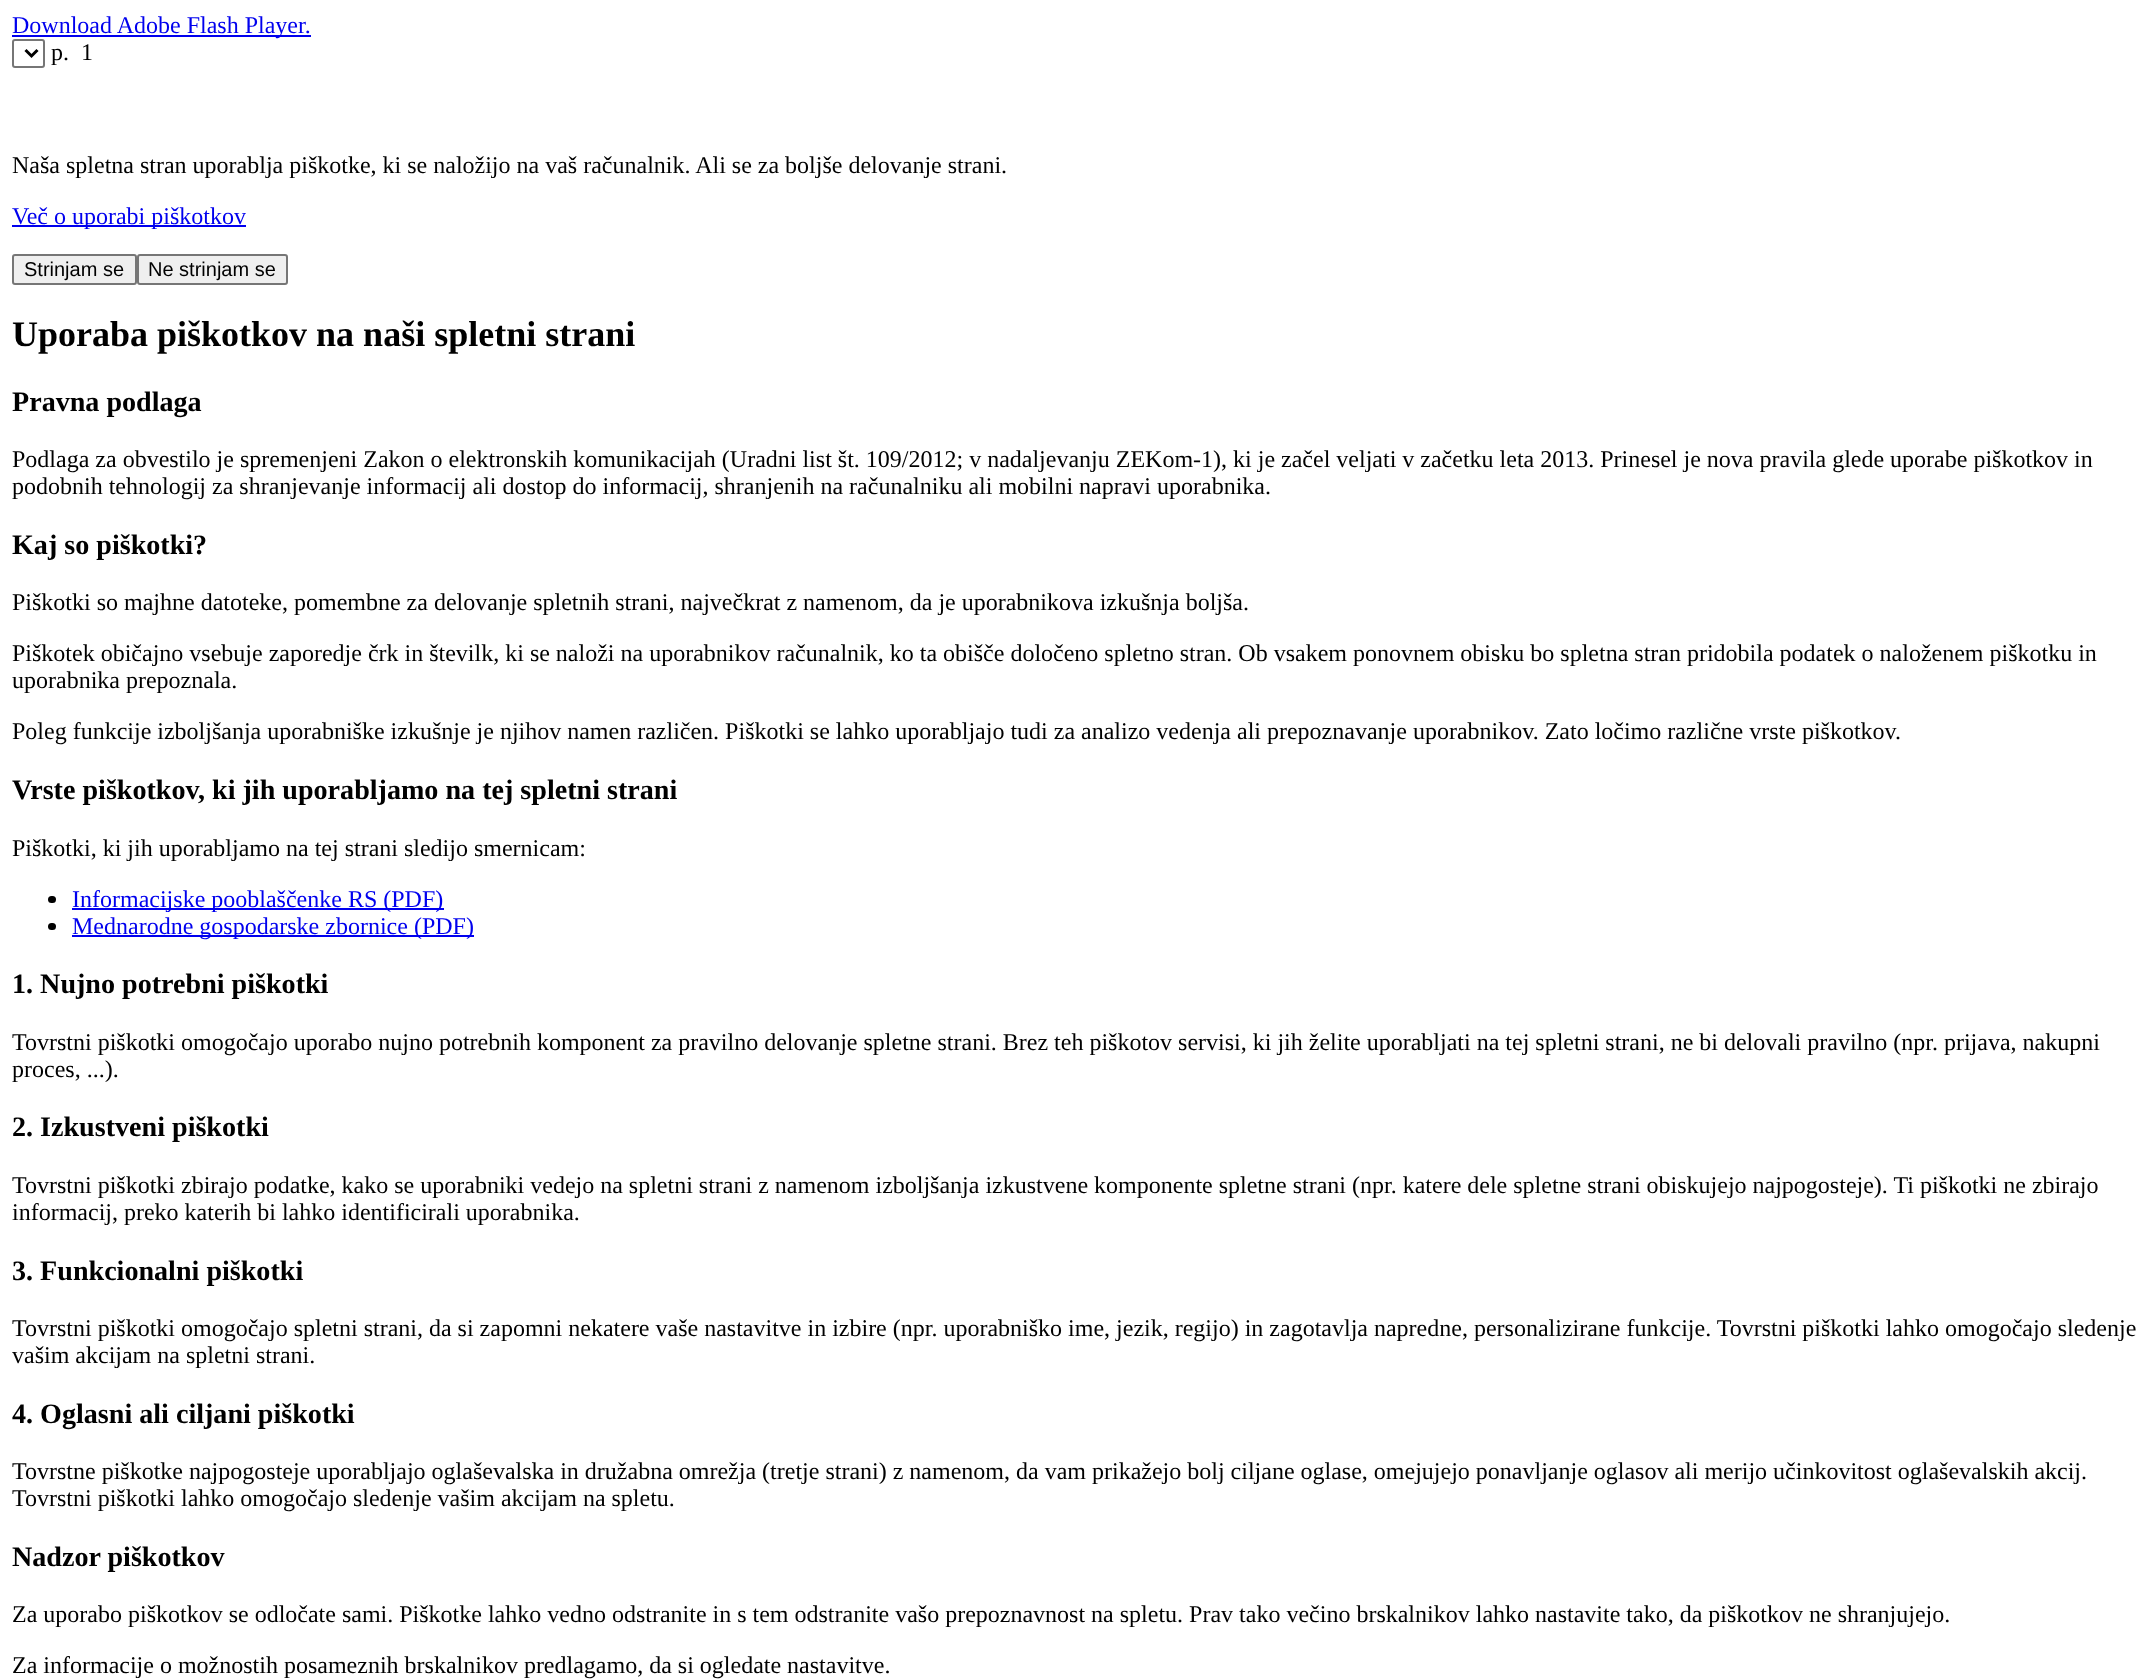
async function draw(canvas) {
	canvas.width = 2154;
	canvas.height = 1680;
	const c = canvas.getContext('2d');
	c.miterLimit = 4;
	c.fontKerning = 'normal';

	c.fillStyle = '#fff';
	c.fillRect(0, 0, 2154, 1680);
	c.fillStyle = '#00e';
	c.fillRect(12, 35, 299, 2);
	c.font = '24px Liberation Serif';
	c.fillText('Download Adobe Flash Player.', 12, 33);
	c.beginPath();
	c.roundRect(13, 40, 31, 27, 2);
	c.strokeStyle = '#767676';
	c.lineWidth = 2;
	c.stroke();
	c.beginPath();
	c.moveTo(25.5, 50);
	c.lineTo(31.5, 56);
	c.lineTo(37.5, 50);
	c.strokeStyle = '#000';
	c.lineWidth = 3;
	c.stroke();
	c.fillStyle = '#000';
	for (const [text, x, y] of [
		['p.', 51, 60],
		['1', 81, 60],
		['Naša spletna stran uporablja piškotke, ki se naložijo na vaš računalnik. Ali se za boljše delovanje strani.', 12, 173],
	]) {
		c.fillText(text, x, y);
	}
	c.fillStyle = '#00e';
	c.fillRect(12, 225, 234, 2);
	c.fillText('Več o uporabi piškotkov', 12, 224);
	c.fillStyle = '#efefef';
	c.beginPath();
	c.roundRect(13, 255, 123, 29, 2);
	c.fill();
	c.strokeStyle = '#767676';
	c.lineWidth = 2;
	c.stroke();
	c.font = '20px Liberation Sans';
	c.fillStyle = '#000';
	c.fillText('Strinjam se', 24, 276);
	c.fillStyle = '#efefef';
	c.beginPath();
	c.roundRect(138, 255, 149, 29, 2);
	c.fill();
	c.stroke();
	c.fillStyle = '#000';
	c.fillText('Ne strinjam se', 148, 276);
	c.font = 'bold 36px Liberation Serif';
	c.fillText('Uporaba piškotkov na naši spletni strani', 12, 346);
	c.font = 'bold 28.1px Liberation Serif';
	c.fillText('Pravna podlaga', 12, 411);
	c.font = '24px Liberation Serif';
	c.fillText('Podlaga za obvestilo je spremenjeni Zakon o elektronskih komunikacijah (Uradni list št. 109/2012; v nadaljevanju ZEKom-1), ki je začel veljati v začetku leta 2013. Prinesel je nova pravila glede uporabe piškotkov in', 12, 467);
	c.fillText('podobnih tehnologij za shranjevanje informacij ali dostop do informacij, shranjenih na računalniku ali mobilni napravi uporabnika.', 12, 494);
	c.font = 'bold 28.1px Liberation Serif';
	c.fillText('Kaj so piškotki?', 12, 554);
	c.font = '24px Liberation Serif';
	for (const [text, x, y] of [
		['Piškotki so majhne datoteke, pomembne za delovanje spletnih strani, največkrat z namenom, da je uporabnikova izkušnja boljša.', 12, 610],
		['Piškotek običajno vsebuje zaporedje črk in številk, ki se naloži na uporabnikov računalnik, ko ta obišče določeno spletno stran. Ob vsakem ponovnem obisku bo spletna stran pridobila podatek o naloženem piškotku in', 12, 661],
		['uporabnika prepoznala.', 12, 688],
		['Poleg funkcije izboljšanja uporabniške izkušnje je njihov namen različen. Piškotki se lahko uporabljajo tudi za analizo vedenja ali prepoznavanje uporabnikov. Zato ločimo različne vrste piškotkov.', 12, 739],
	]) {
		c.fillText(text, x, y);
	}
	c.font = 'bold 28.1px Liberation Serif';
	c.fillText('Vrste piškotkov, ki jih uporabljamo na tej spletni strani', 12, 799);
	c.font = '24px Liberation Serif';
	c.fillText('Piškotki, ki jih uporabljamo na tej strani sledijo smernicam:', 12, 856);
	c.beginPath();
	c.roundRect(48, 896, 8, 7, 3.5);
	c.fill();
	c.fillStyle = '#00e';
	c.fillRect(72, 908, 372, 2);
	c.fillText('Informacijske pooblaščenke RS (PDF)', 72, 907);
	c.fillStyle = '#000';
	c.beginPath();
	c.roundRect(48, 923, 8, 7, 3.5);
	c.fill();
	c.fillStyle = '#00e';
	c.fillRect(72, 935, 402, 2);
	c.fillText('Mednarodne gospodarske zbornice (PDF)', 72, 934);
	c.font = 'bold 28.1px Liberation Serif';
	c.fillStyle = '#000';
	c.fillText('1. Nujno potrebni piškotki', 12, 993);
	c.font = '24px Liberation Serif';
	c.fillText('Tovrstni piškotki omogočajo uporabo nujno potrebnih komponent za pravilno delovanje spletne strani. Brez teh piškotov servisi, ki jih želite uporabljati na tej spletni strani, ne bi delovali pravilno (npr. prijava, nakupni', 12, 1050);
	c.fillText('proces, ...).', 12, 1077);
	c.font = 'bold 28.1px Liberation Serif';
	c.fillText('2. Izkustveni piškotki', 12, 1136);
	c.font = '24px Liberation Serif';
	c.fillText('Tovrstni piškotki zbirajo podatke, kako se uporabniki vedejo na spletni strani z namenom izboljšanja izkustvene komponente spletne strani (npr. katere dele spletne strani obiskujejo najpogosteje). Ti piškotki ne zbirajo', 12, 1193);
	c.fillText('informacij, preko katerih bi lahko identificirali uporabnika.', 12, 1220);
	c.font = 'bold 28.1px Liberation Serif';
	c.fillText('3. Funkcionalni piškotki', 12, 1280);
	c.font = '24px Liberation Serif';
	c.fillText('Tovrstni piškotki omogočajo spletni strani, da si zapomni nekatere vaše nastavitve in izbire (npr. uporabniško ime, jezik, regijo) in zagotavlja napredne, personalizirane funkcije. Tovrstni piškotki lahko omogočajo sledenje', 12, 1336);
	c.fillText('vašim akcijam na spletni strani.', 12, 1363);
	c.font = 'bold 28.1px Liberation Serif';
	c.fillText('4. Oglasni ali ciljani piškotki', 12, 1423);
	c.font = '24px Liberation Serif';
	c.fillText('Tovrstne piškotke najpogosteje uporabljajo oglaševalska in družabna omrežja (tretje strani) z namenom, da vam prikažejo bolj ciljane oglase, omejujejo ponavljanje oglasov ali merijo učinkovitost oglaševalskih akcij.', 12, 1479);
	c.fillText('Tovrstni piškotki lahko omogočajo sledenje vašim akcijam na spletu.', 12, 1506);
	c.font = 'bold 28.1px Liberation Serif';
	c.fillText('Nadzor piškotkov', 12, 1566);
	c.font = '24px Liberation Serif';
	c.fillText('Za uporabo piškotkov se odločate sami. Piškotke lahko vedno odstranite in s tem odstranite vašo prepoznavnost na spletu. Prav tako večino brskalnikov lahko nastavite tako, da piškotkov ne shranjujejo.', 12, 1622);
	c.fillText('Za informacije o možnostih posameznih brskalnikov predlagamo, da si ogledate nastavitve.', 12, 1673);
}

draw(document.querySelector('canvas'));
